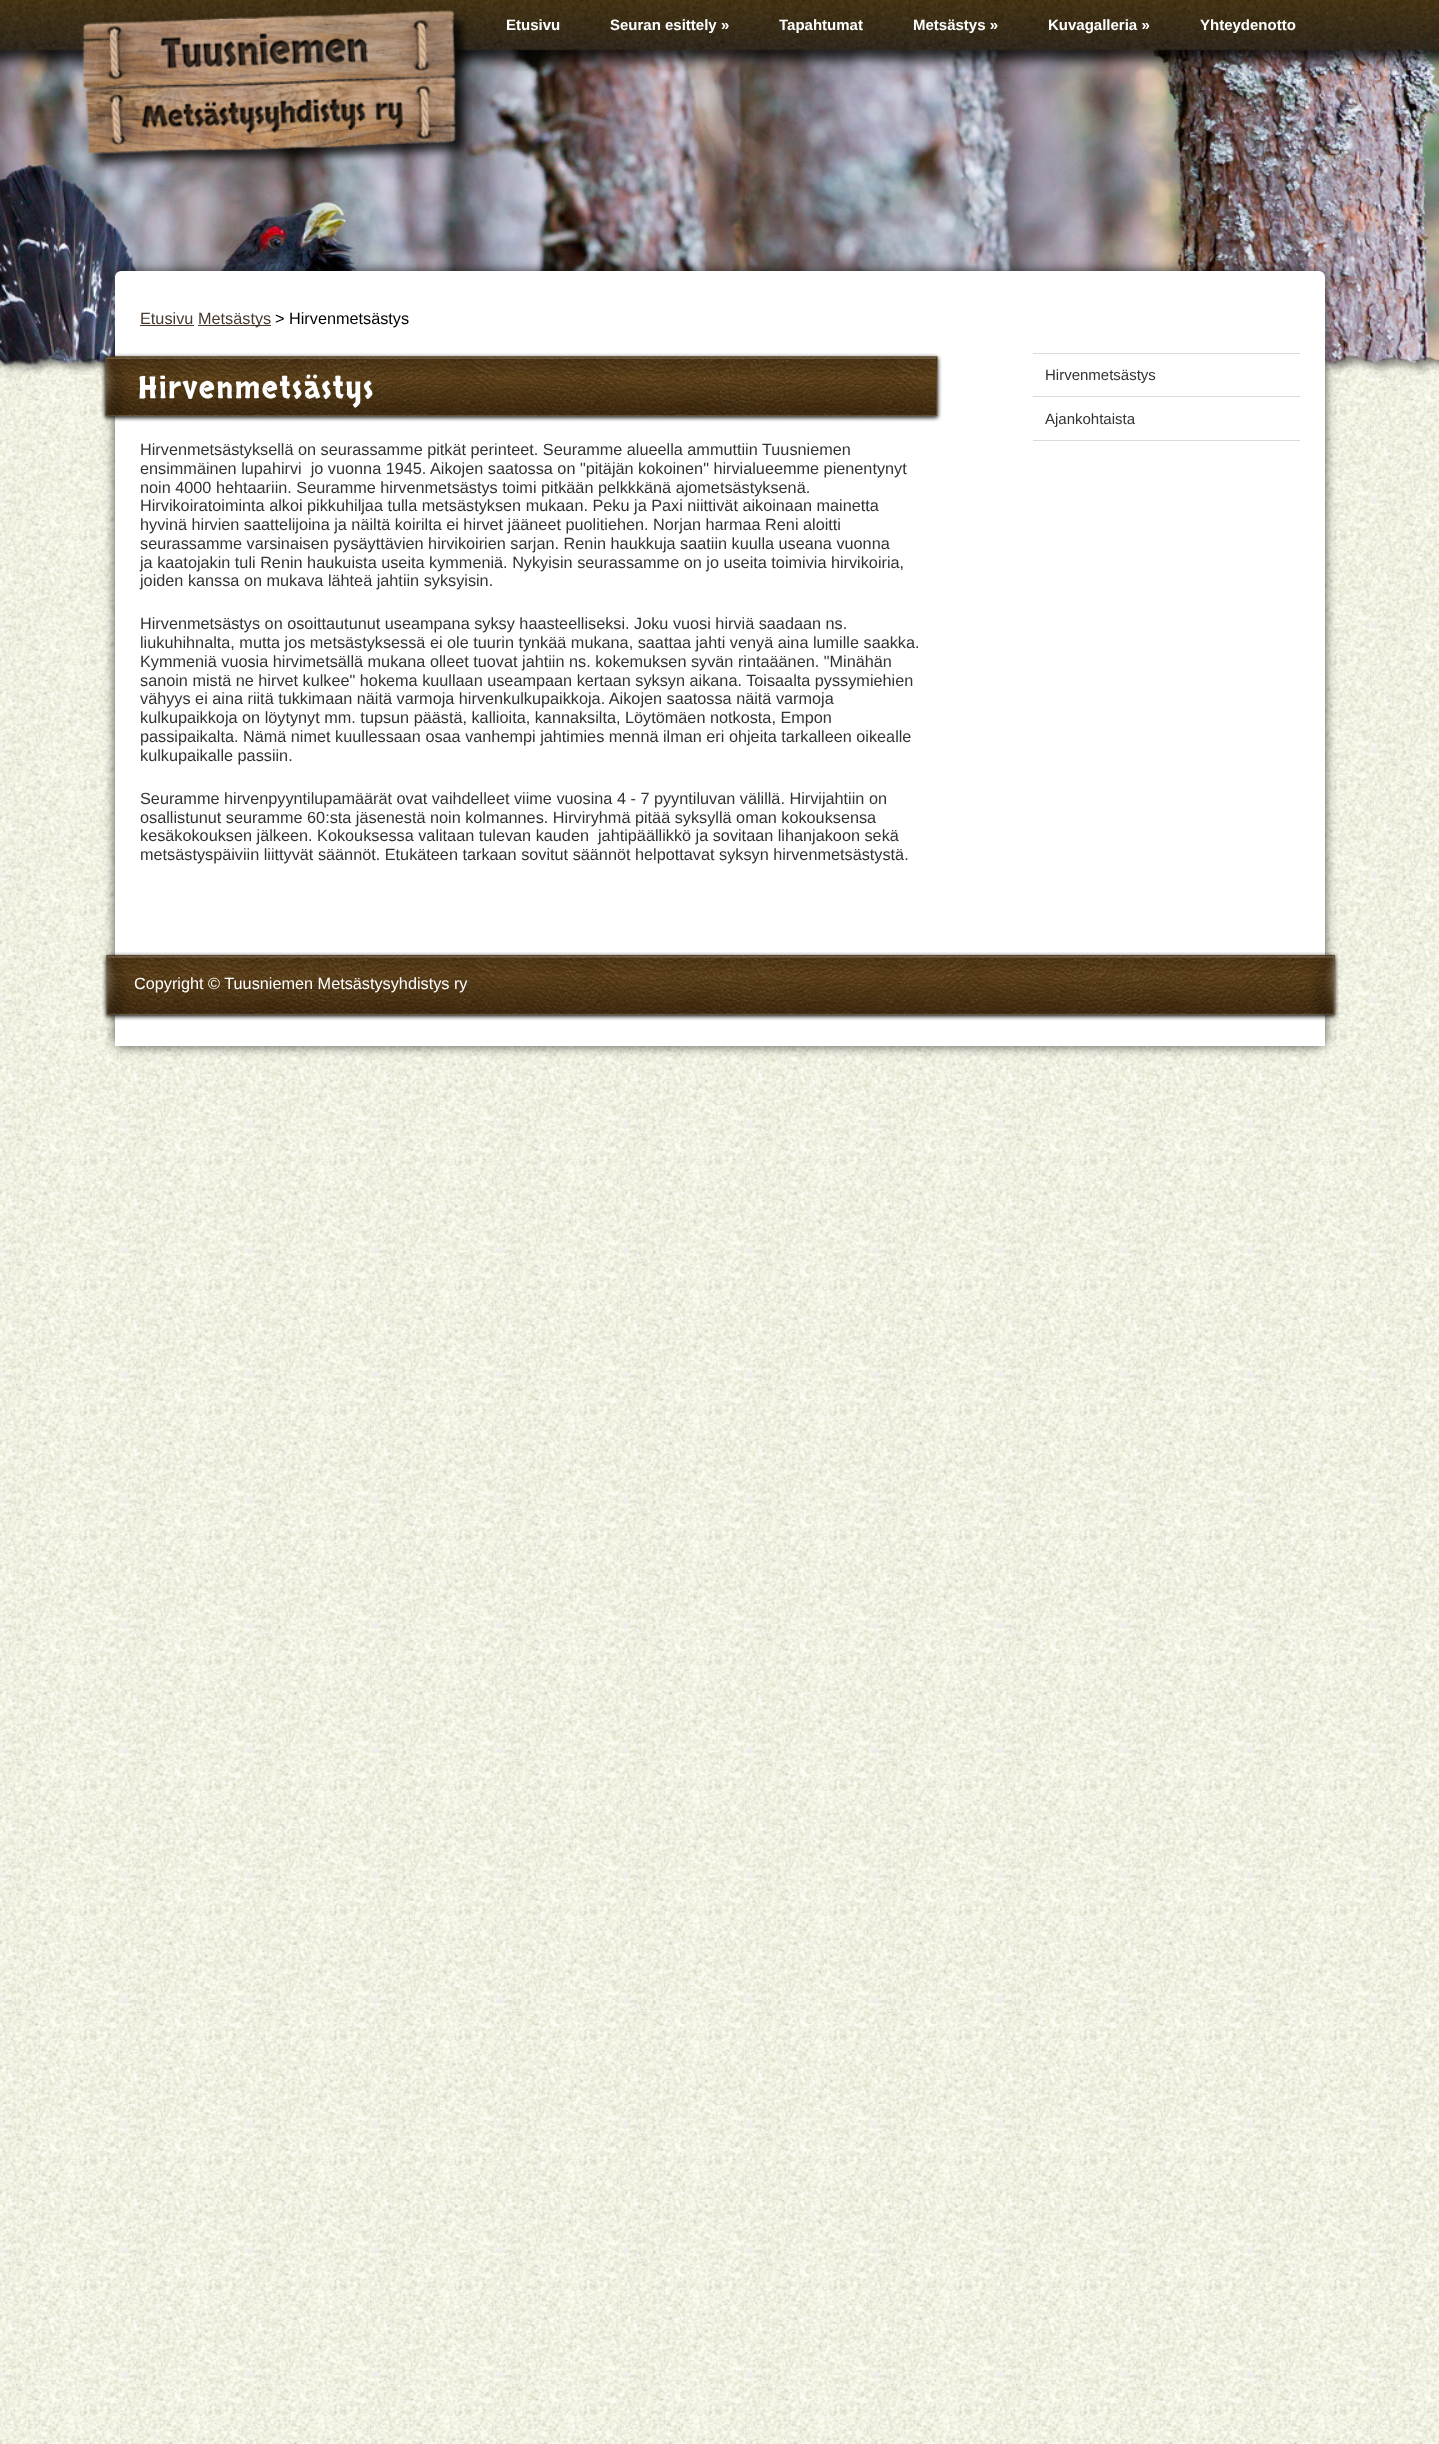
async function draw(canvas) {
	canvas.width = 1439;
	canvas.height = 2444;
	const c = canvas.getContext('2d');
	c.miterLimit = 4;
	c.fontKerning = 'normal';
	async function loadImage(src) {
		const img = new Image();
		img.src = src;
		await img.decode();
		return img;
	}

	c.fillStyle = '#eee';
	c.fillRect(0, 0, 1439, 2444);
	c.drawImage(await loadImage('img1.png'), 0, 375, 1439, 2069);
	c.drawImage(await loadImage('img4.png'), 0, 48, 1439, 319);
	c.drawImage(await loadImage('img2.png'), 0, 0, 1439, 71);
	c.drawImage(await loadImage('img3.png'), 82, 10, 390, 161);
	c.font = 'bold 15px Liberation Sans';
	c.fillStyle = '#fff';
	for (const [text, x, y] of [
		['Etusivu', 506, 30],
		['Seuran esittely »', 610, 30],
		['Tapahtumat', 779, 30],
		['Metsästys »', 913, 30],
		['Kuvagalleria »', 1048, 30],
		['Yhteydenotto', 1200, 30],
	]) {
		c.fillText(text, x, y);
	}
	c.drawImage(await loadImage('img5.png'), 0, 354, 1439, 21);
	c.fillStyle = '#000000b3';
	c.filter = 'blur(6px)';
	c.beginPath();
	c.roundRect(115, 271, 1210, 775, 6);
	c.fill();
	c.filter = 'none';
	c.fillStyle = '#fff';
	c.beginPath();
	c.roundRect(115, 271, 1210, 775, [6, 6, 0, 0]);
	c.fill();
	c.font = '16.25px Liberation Sans';
	c.fillStyle = '#47392f';
	c.fillText('Etusivu', 140, 324);
	c.fillRect(140, 325, 54, 1);
	c.fillRect(198, 325, 73, 1);
	c.fillText('Metsästys', 198, 324);
	c.fillStyle = '#000';
	c.fillText('> Hirvenmetsästys', 275, 324);
	c.drawImage(await loadImage('img6.png'), 101, 353, 841, 69);
	c.letterSpacing = '1.7px';
	c.font = '30px Skranji';
	c.fillStyle = '#fff';
	c.fillText('Hirvenmetsästys', 138, 398);
	c.letterSpacing = '0px';
	c.font = '16.25px Liberation Sans';
	c.fillStyle = '#333';
	for (const [text, x, y] of [
		['Hirvenmetsästyksellä on seurassamme pitkät perinteet. Seuramme alueella ammuttiin Tuusniemen', 140, 455],
		['ensimmäinen lupahirvi  jo vuonna 1945. Aikojen saatossa on "pitäjän kokoinen" hirvialueemme pienentynyt', 140, 474],
		['noin 4000 hehtaariin. Seuramme hirvenmetsästys toimi pitkään pelkkkänä ajometsästyksenä.', 140, 493],
		['Hirvikoiratoiminta alkoi pikkuhiljaa tulla metsästyksen mukaan. Peku ja Paxi niittivät aikoinaan mainetta', 140, 511],
		['hyvinä hirvien saattelijoina ja näiltä koirilta ei hirvet jääneet puolitiehen. Norjan harmaa Reni aloitti', 140, 530],
		['seurassamme varsinaisen pysäyttävien hirvikoirien sarjan. Renin haukkuja saatiin kuulla useana vuonna', 140, 549],
		['ja kaatojakin tuli Renin haukuista useita kymmeniä. Nykyisin seurassamme on jo useita toimivia hirvikoiria,', 140, 568],
		['joiden kanssa on mukava lähteä jahtiin syksyisin.', 140, 586],
		['Hirvenmetsästys on osoittautunut useampana syksy haasteelliseksi. Joku vuosi hirviä saadaan ns.', 140, 629],
		['liukuhihnalta, mutta jos metsästyksessä ei ole tuurin tynkää mukana, saattaa jahti venyä aina lumille saakka.', 140, 648],
		['Kymmeniä vuosia hirvimetsällä mukana olleet tuovat jahtiin ns. kokemuksen syvän rintaäänen. "Minähän', 140, 667],
		['sanoin mistä ne hirvet kulkee" hokema kuullaan useampaan kertaan syksyn aikana. Toisaalta pyssymiehien', 140, 686],
		['vähyys ei aina riitä tukkimaan näitä varmoja hirvenkulkupaikkoja. Aikojen saatossa näitä varmoja', 140, 704],
		['kulkupaikkoja on löytynyt mm. tupsun päästä, kallioita, kannaksilta, Löytömäen notkosta, Empon', 140, 723],
		['passipaikalta. Nämä nimet kuullessaan osaa vanhempi jahtimies mennä ilman eri ohjeita tarkalleen oikealle', 140, 742],
		['kulkupaikalle passiin.', 140, 761],
		['Seuramme hirvenpyyntilupamäärät ovat vaihdelleet viime vuosina 4 - 7 pyyntiluvan välillä. Hirvijahtiin on', 140, 804],
		['osallistunut seuramme 60:sta jäsenestä noin kolmannes. Hirviryhmä pitää syksyllä oman kokouksensa', 140, 823],
		['kesäkokouksen jälkeen. Kokouksessa valitaan tulevan kauden  jahtipäällikkö ja sovitaan lihanjakoon sekä', 140, 841],
		['metsästyspäiviin liittyvät säännöt. Etukäteen tarkaan sovitut säännöt helpottavat syksyn hirvenmetsästystä.', 140, 860],
	]) {
		c.fillText(text, x, y);
	}
	c.fillStyle = '#dadada';
	c.fillRect(1033, 353, 267, 1);
	c.font = '15px Liberation Sans';
	c.fillStyle = '#333';
	c.fillText('Hirvenmetsästys', 1045, 380);
	c.fillStyle = '#dadada';
	c.fillRect(1033, 440, 267, 1);
	c.fillRect(1033, 396, 267, 1);
	c.fillStyle = '#333';
	c.fillText('Ajankohtaista', 1045, 424);
	c.drawImage(await loadImage('img7.png'), 102, 952, 1237, 69);
	c.font = '16.25px Liberation Sans';
	c.fillStyle = '#fff';
	c.fillText('Copyright © Tuusniemen Metsästysyhdistys ry', 134, 989);
}

draw(document.querySelector('canvas'));
